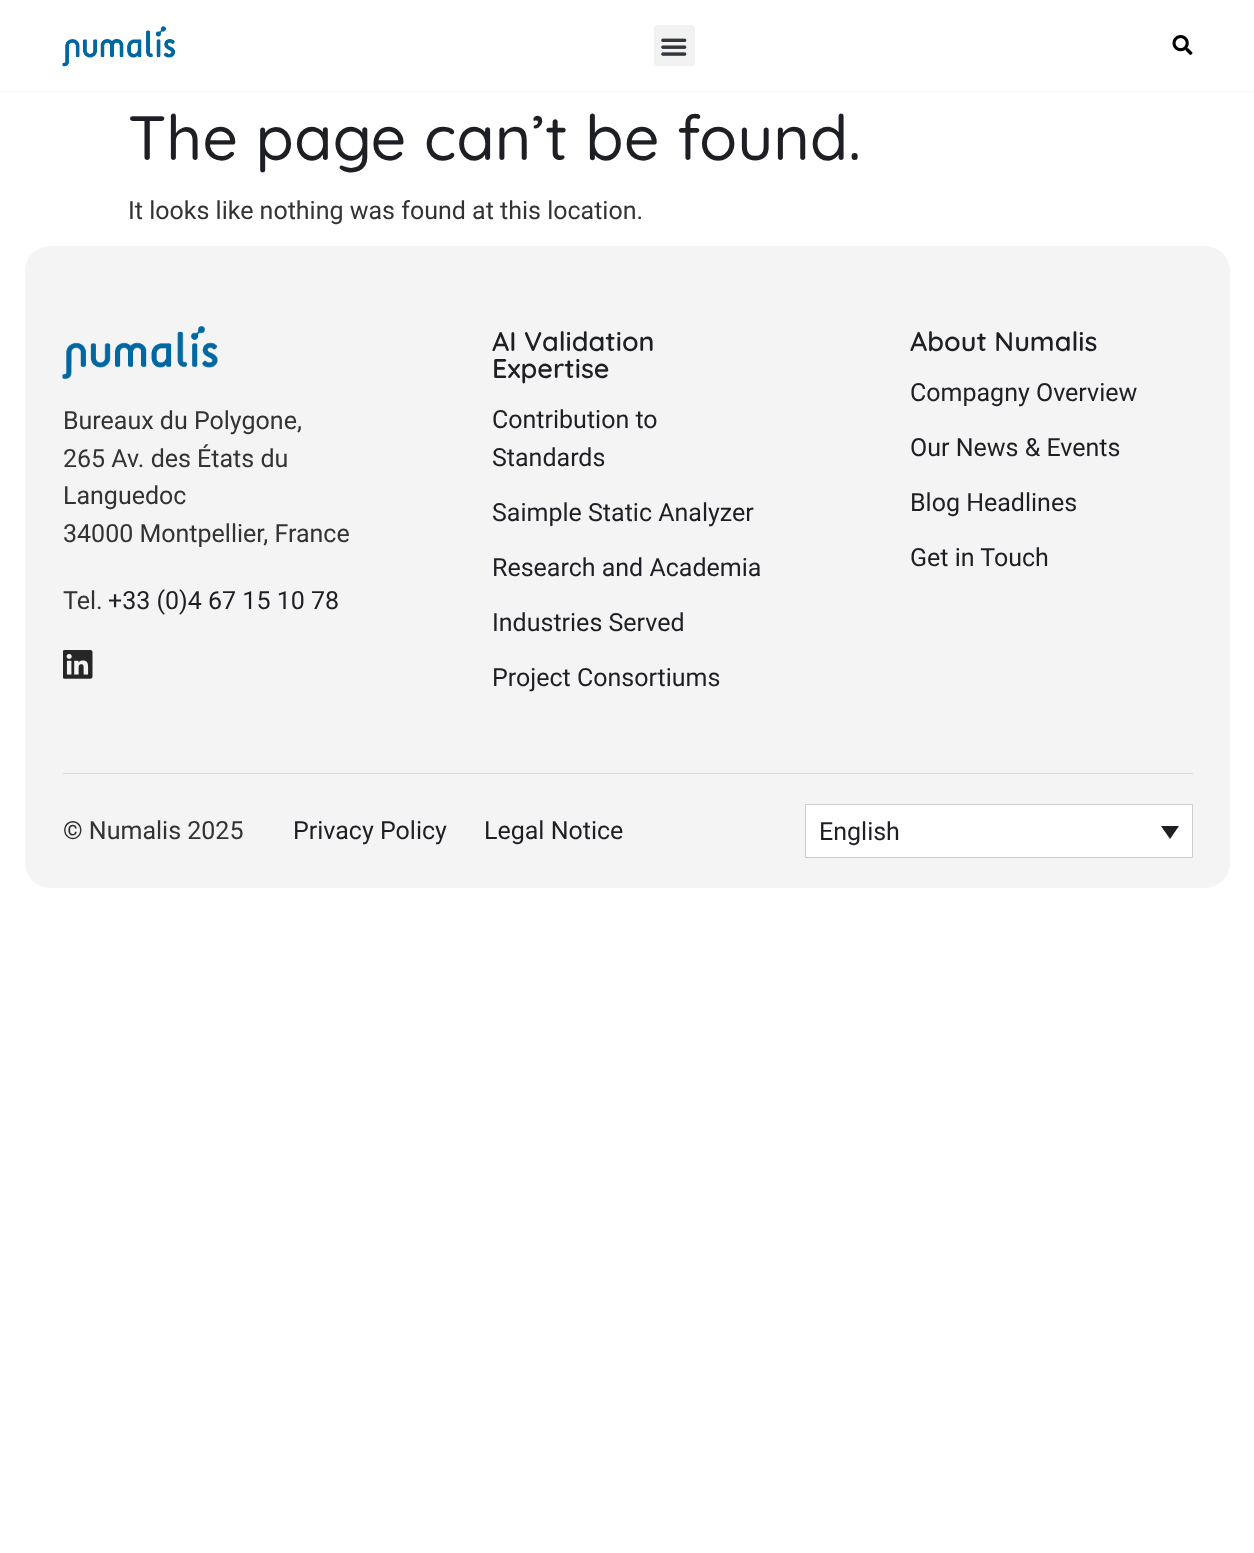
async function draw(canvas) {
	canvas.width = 1254;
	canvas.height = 1553;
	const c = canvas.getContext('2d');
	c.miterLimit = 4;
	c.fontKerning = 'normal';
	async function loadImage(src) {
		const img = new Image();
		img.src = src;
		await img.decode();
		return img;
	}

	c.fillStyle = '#fff';
	c.fillRect(0, 0, 1254, 1553);
	c.fillStyle = '#f4f4f4';
	c.fillRect(0, 91, 1254, 1);
	c.drawImage(await loadImage('img1.png'), 62, 26, 114, 41);
	c.fillStyle = '#f2f2f2';
	c.beginPath();
	c.roundRect(654, 25, 41, 41, 4);
	c.fill();
	c.drawImage(await loadImage('img2.png'), 661, 38, 26, 18);
	c.drawImage(await loadImage('img3.png'), 1172, 35, 21, 20);
	c.font = '500 62.7px Quicksand';
	c.fillStyle = '#1e1f24';
	c.fillText('The page can’t be found.', 128, 160);
	c.font = '25px Roboto';
	c.fillStyle = '#333';
	c.fillText('It looks like nothing was found at this location.', 128, 219);
	c.fillStyle = '#f4f4f4';
	c.beginPath();
	c.roundRect(25, 246, 1205, 642, 25);
	c.fill();
	c.drawImage(await loadImage('img4.png'), 62, 326, 156, 53);
	c.fillStyle = '#333';
	for (const [text, x, y] of [
		['Bureaux du Polygone,', 63, 429],
		['265 Av. des États du', 63, 467],
		['Languedoc', 63, 504],
		['34000 Montpellier, France', 63, 542],
		['Tel.', 63, 609],
	]) {
		c.fillText(text, x, y);
	}
	c.fillStyle = '#1e1f24';
	c.fillText('+33 (0)4 67 15 10 78', 108, 609);
	c.drawImage(await loadImage('img5.png'), 63, 650, 30, 29);
	c.font = '600 27px Quicksand';
	c.fillText('AI Validation', 492, 351);
	c.fillText('Expertise', 492, 378);
	c.font = '25px Roboto';
	for (const [text, x, y] of [
		['Contribution to', 492, 428],
		['Standards', 492, 466],
		['Saimple Static Analyzer', 492, 521],
		['Research and Academia', 492, 576],
		['Industries Served', 492, 631],
		['Project Consortiums', 492, 686],
	]) {
		c.fillText(text, x, y);
	}
	c.font = '600 27px Quicksand';
	c.fillText('About Numalis', 910, 351);
	c.font = '25px Roboto';
	for (const [text, x, y] of [
		['Compagny Overview', 910, 401],
		['Our News & Events', 910, 456],
		['Blog Headlines', 910, 511],
		['Get in Touch', 910, 566],
	]) {
		c.fillText(text, x, y);
	}
	c.fillStyle = '#d8d8d8';
	c.fillRect(63, 773, 1130, 1);
	c.fillStyle = '#333';
	c.fillText('© Numalis 2025', 63, 839);
	c.fillStyle = '#1e1f24';
	c.fillText('Privacy Policy', 293, 839);
	c.fillText('Legal Notice', 484, 839);
	c.fillStyle = '#fff';
	c.beginPath();
	c.rect(805.5, 804.5, 387, 53);
	c.fill();
	c.strokeStyle = '#cdcdcd';
	c.stroke();
	c.fillStyle = '#1e1f24';
	c.fillText('English', 819, 840);
	c.beginPath();
	c.moveTo(1161, 826);
	c.lineTo(1179, 826);
	c.lineTo(1170, 839);
	c.closePath();
	c.fill();
}

draw(document.querySelector('canvas'));
